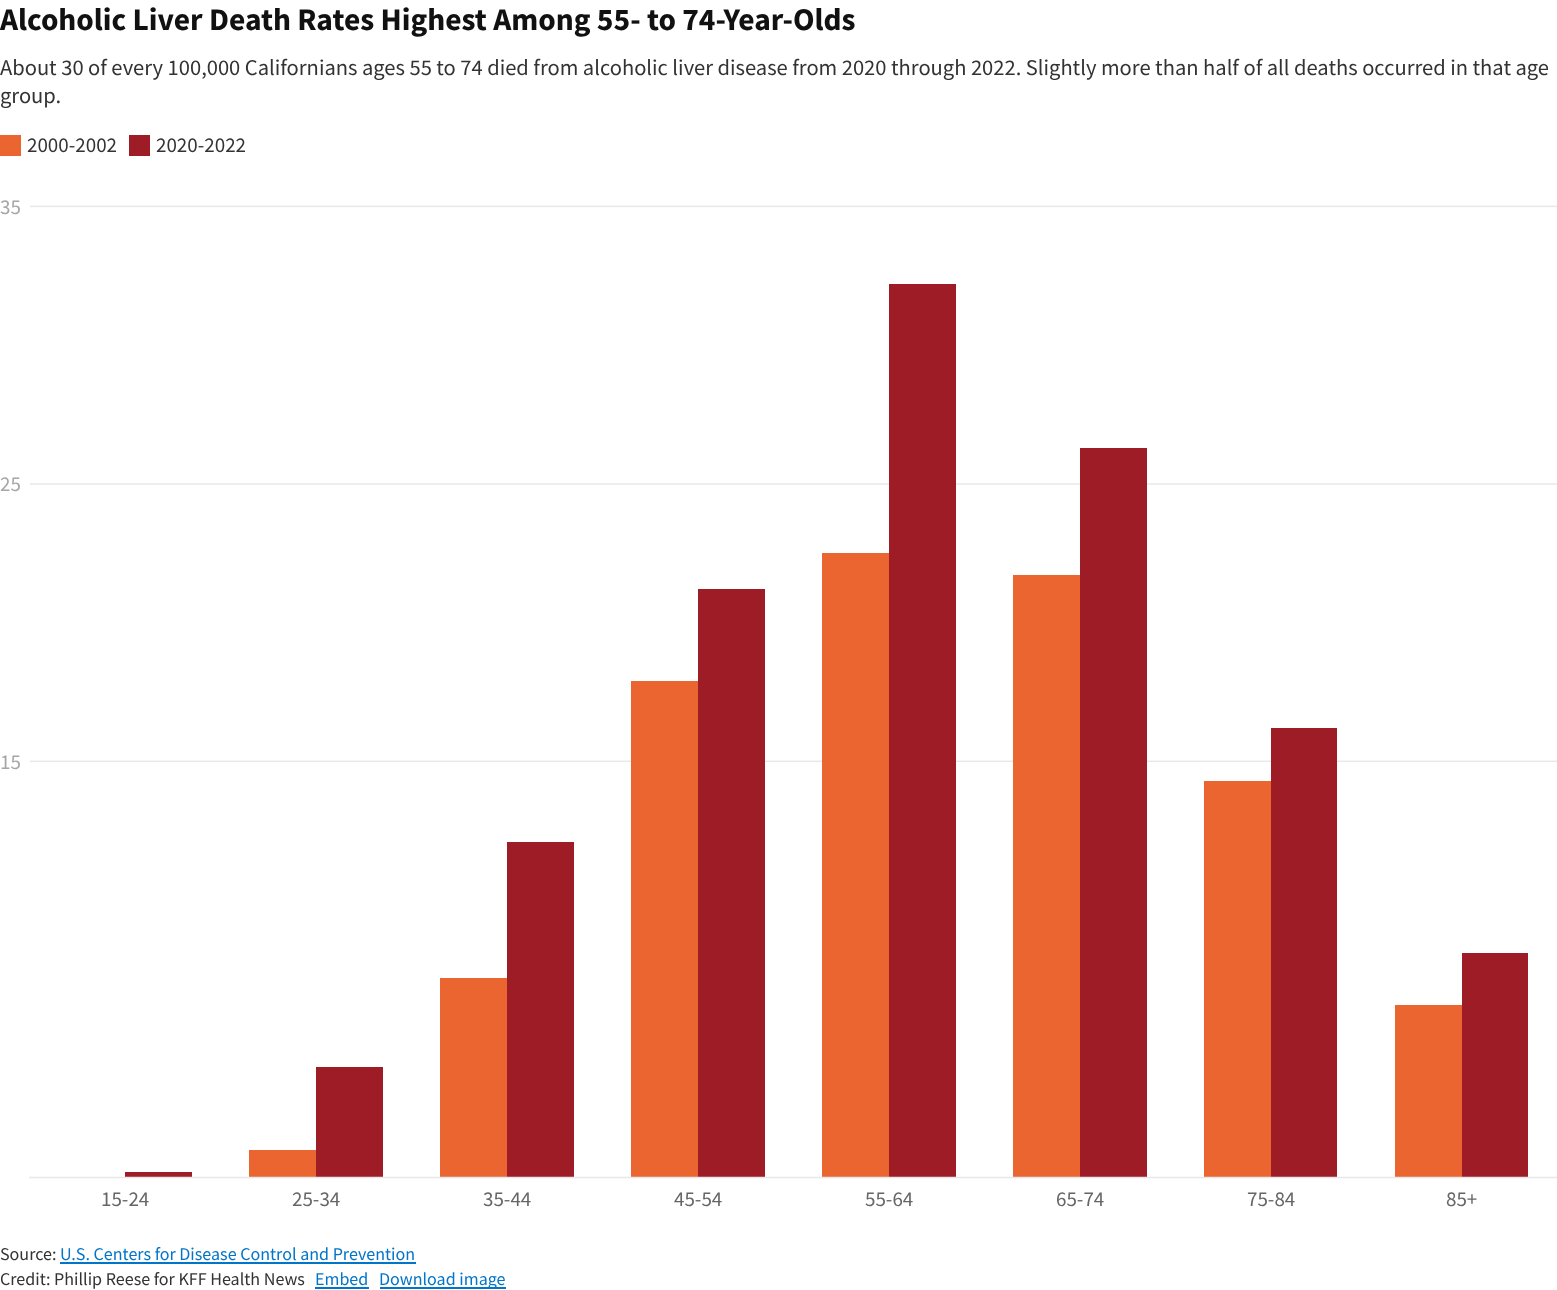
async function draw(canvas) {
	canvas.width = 1557;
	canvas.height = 1290;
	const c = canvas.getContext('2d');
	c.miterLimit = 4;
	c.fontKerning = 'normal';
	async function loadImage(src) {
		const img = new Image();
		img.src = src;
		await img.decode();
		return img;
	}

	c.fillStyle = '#fff';
	c.fillRect(0, 0, 1557, 1290);
	c.font = 'bold 31.5px Source Sans Pro';
	c.fillStyle = '#111';
	c.fillText('Alcoholic Liver Death Rates Highest Among 55- to 74-Year-Olds', 0, 30);
	c.font = '22.5px Source Sans Pro';
	c.fillStyle = '#333';
	c.fillText('About 30 of every 100,000 Californians ages 55 to 74 died from alcoholic liver disease from 2020 through 2022. Slightly more than half of all deaths occurred in that age', 0, 75);
	c.fillText('group.', 0, 103);
	c.fillStyle = '#eb6531';
	c.fillRect(0, 135, 21, 21);
	c.font = '21px Source Sans Pro';
	c.fillStyle = '#333';
	c.fillText('2000-2002', 27, 152);
	c.fillStyle = '#9e1c25';
	c.fillRect(129, 135, 21, 21);
	c.fillStyle = '#333';
	c.fillText('2020-2022', 156, 152);
	c.fillStyle = '#a6a6a6';
	c.fillText('35', 0, 214);
	c.drawImage(await loadImage('img1.png'), 29, 205, 1528, 974);
	c.fillText('25', 0, 491);
	c.fillText('15', 0, 769);
	c.fillStyle = '#666';
	for (const [text, x, y] of [
		['15-24', 101, 1206],
		['25-34', 292, 1206],
		['35-44', 483, 1206],
		['45-54', 674, 1206],
		['55-64', 865, 1206],
		['65-74', 1056, 1206],
		['75-84', 1247, 1206],
		['85+', 1446, 1206],
	]) {
		c.fillText(text, x, y);
	}
	c.font = '18px Source Sans Pro';
	c.fillStyle = '#333';
	c.fillText('Source:', 0, 1260);
	c.fillStyle = '#0075c9';
	c.fillText('U.S. Centers for Disease Control and Prevention', 60, 1260);
	c.fillRect(60, 1262, 356, 2);
	c.fillStyle = '#333';
	c.fillText('Credit: Phillip Reese for KFF Health News', 0, 1285);
	c.fillStyle = '#0075c9';
	c.fillText('Embed', 315, 1285);
	c.fillRect(315, 1287, 54, 2);
	c.fillRect(380, 1287, 126, 2);
	c.fillText('Download image', 379, 1285);
}

draw(document.querySelector('canvas'));
